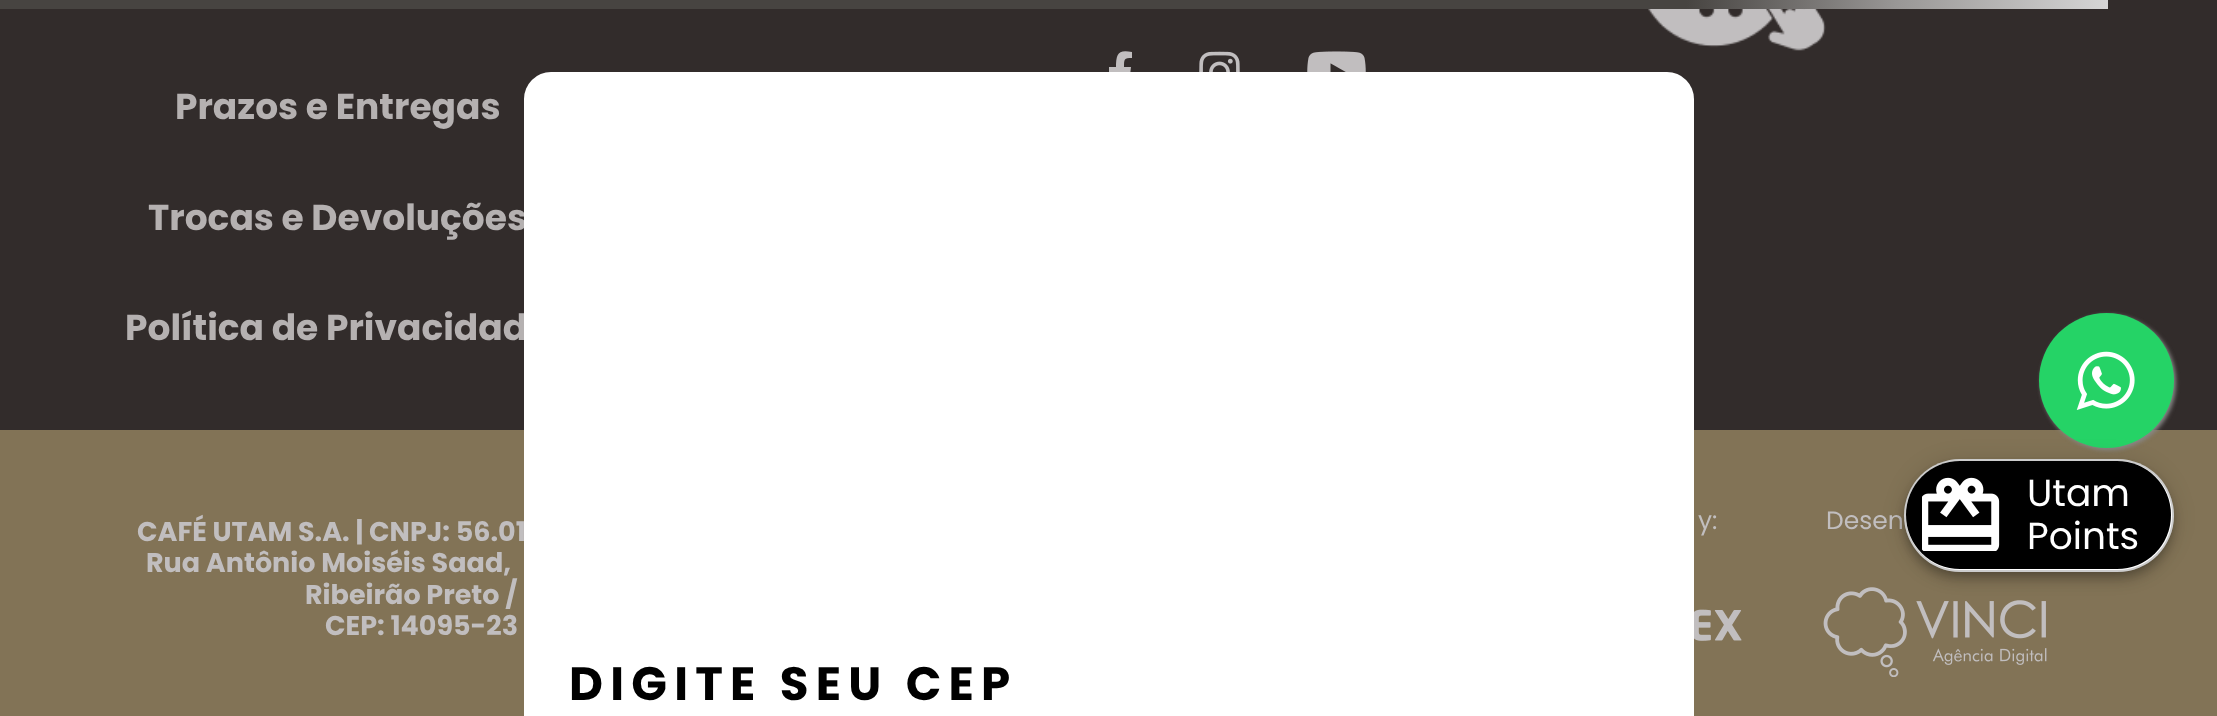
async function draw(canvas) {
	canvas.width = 2217;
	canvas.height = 716;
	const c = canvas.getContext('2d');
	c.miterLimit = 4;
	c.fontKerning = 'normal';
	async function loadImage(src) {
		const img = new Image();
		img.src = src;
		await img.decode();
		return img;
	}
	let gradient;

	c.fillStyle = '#322c2b';
	c.fillRect(0, 0, 2217, 716);
	gradient = c.createLinearGradient(0, 4.5, 2108, 4.5);
	gradient.addColorStop(0.8, '#474441');
	gradient.addColorStop(0.9, '#999796');
	gradient.addColorStop(1, '#d6d5d5');
	c.fillStyle = gradient;
	c.fillRect(0, 0, 2108, 9);
	c.drawImage(await loadImage('img1.png'), 1648, 9, 178, 42);
	c.fillStyle = '#c1bebf';
	c.beginPath();
	c.moveTo(1130, 75);
	c.lineTo(1131, 67);
	c.lineTo(1124, 67);
	c.bezierCurveTo(1124, 59, 1124, 58, 1132, 58);
	c.lineTo(1132, 52);
	c.bezierCurveTo(1118, 49, 1116, 54, 1116, 67);
	c.lineTo(1109, 67);
	c.lineTo(1109, 75);
	c.lineTo(1116, 75);
	c.lineTo(1116, 93);
	c.lineTo(1124, 93);
	c.lineTo(1124, 75);
	c.closePath();
	c.fill();
	c.drawImage(await loadImage('img2.png'), 1199, 51, 41, 21);
	c.drawImage(await loadImage('img3.png'), 1307, 51, 59, 21);
	c.font = 'bold 36px Poppins';
	c.fillStyle = '#b5b1b1';
	for (const [text, x, y] of [
		['Prazos e Entregas', 175, 119],
		['Trocas e Devoluções', 148, 230],
		['Política de Privacidad', 125, 340],
	]) {
		c.fillText(text, x, y);
	}
	c.fillStyle = '#827356';
	c.fillRect(0, 430, 2217, 286);
	c.font = 'bold 27px Poppins';
	c.fillStyle = '#c1bebf';
	for (const [text, x, y] of [
		['CAFÉ UTAM S.A. | CNPJ: 56.01', 137, 541],
		['Rua Antônio Moiséis Saad,', 146, 572],
		['Ribeirão Preto /', 305, 604],
		['CEP: 14095-23', 325, 635],
	]) {
		c.fillText(text, x, y);
	}
	c.font = '25px Poppins';
	c.fillText('y:', 1698, 529);
	c.drawImage(await loadImage('img4.png'), 1694, 609, 48, 32);
	c.fillText('Desen', 1826, 529);
	c.drawImage(await loadImage('img5.png'), 1823, 587, 224, 90);
	c.fillStyle = '#888';
	c.filter = 'blur(2px)';
	c.beginPath();
	c.roundRect(2041, 315, 135, 135, 67.5);
	c.fill();
	c.filter = 'none';
	c.fillStyle = '#25d366';
	c.beginPath();
	c.arc(2106.5, 380.5, 67.5, 0, 2 * Math.PI);
	c.fill();
	c.drawImage(await loadImage('img6.png'), 2076, 351, 59, 59);
	c.fillStyle = '#0000001f';
	c.filter = 'blur(11px)';
	c.beginPath();
	c.roundRect(1904, 461, 270, 113, 56.5);
	c.fill();
	c.filter = 'none';
	c.fillStyle = '#00000024';
	c.filter = 'blur(5.5px)';
	c.beginPath();
	c.roundRect(1904, 468, 270, 113, 56.5);
	c.fill();
	c.filter = 'none';
	c.fillStyle = '#00000033';
	c.filter = 'blur(4.5px)';
	c.beginPath();
	c.roundRect(1906, 466, 265, 108, 54);
	c.fill();
	c.filter = 'none';
	c.fillStyle = '#fff';
	c.beginPath();
	c.roundRect(1904, 459, 270, 113, 56.5);
	c.fill();
	c.beginPath();
	c.roundRect(1905, 460, 268, 111, 55.5);
	c.strokeStyle = '#00000033';
	c.lineWidth = 2;
	c.stroke();
	c.fillStyle = '#000';
	c.beginPath();
	c.roundRect(1906, 461, 265, 108, 54);
	c.fill();
	c.drawImage(await loadImage('img7.png'), 1922, 477, 78, 74);
	c.font = '37.5px Poppins';
	c.fillStyle = '#fff';
	c.fillText('Utam', 2027, 506);
	c.fillText('Points', 2027, 549);
	c.beginPath();
	c.roundRect(524, 72, 1170, 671, 27);
	c.fill();
	c.letterSpacing = '7.25px';
	c.font = 'bold 46.75px Poppins';
	c.fillStyle = '#000';
	c.fillText('DIGITE SEU CEP', 569, 700);
}

draw(document.querySelector('canvas'));
